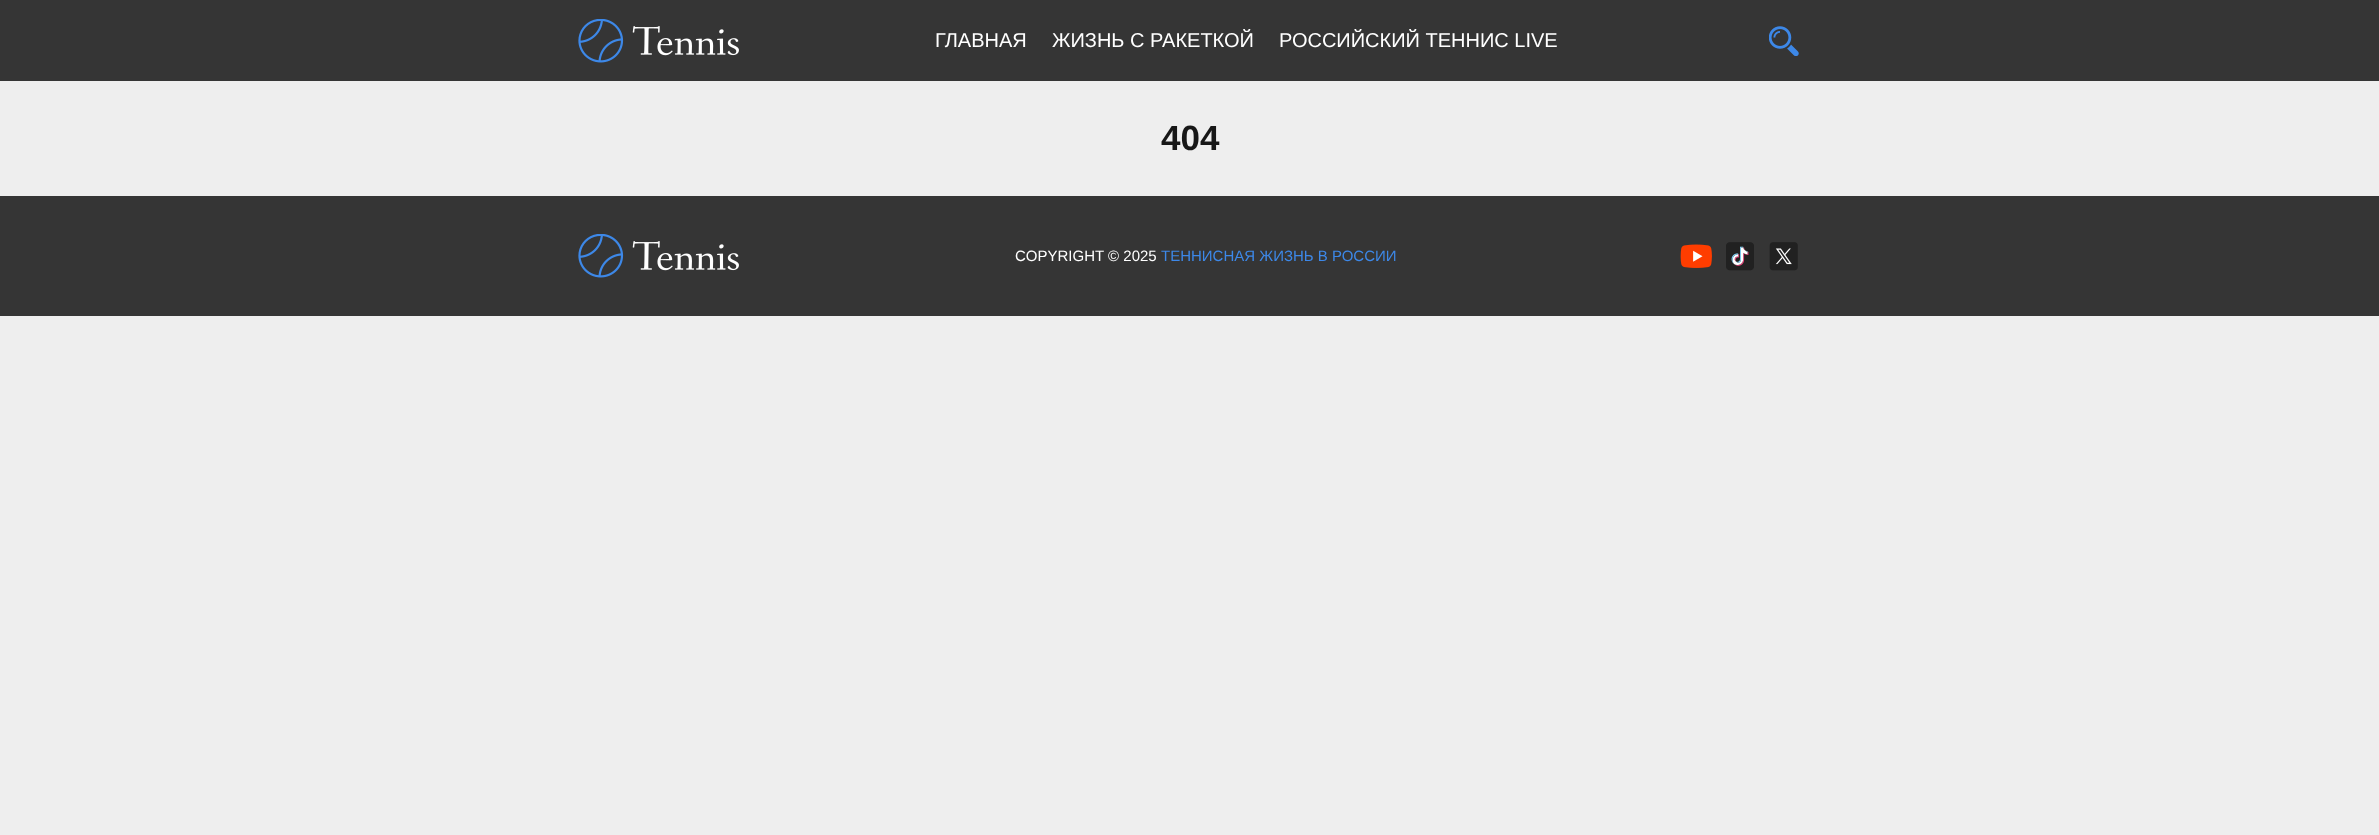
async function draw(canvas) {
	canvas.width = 2379;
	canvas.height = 835;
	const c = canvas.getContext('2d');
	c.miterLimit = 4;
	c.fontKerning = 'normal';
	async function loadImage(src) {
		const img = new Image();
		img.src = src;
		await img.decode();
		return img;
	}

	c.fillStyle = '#eee';
	c.fillRect(0, 0, 2379, 835);
	c.fillStyle = '#353535';
	c.fillRect(0, 0, 2379, 81);
	c.drawImage(await loadImage('img1.png'), 578, 19, 161, 44);
	c.font = '20px Liberation Sans';
	c.fillStyle = '#fff';
	for (const [text, x, y] of [
		['ГЛАВНАЯ', 935, 47],
		['ЖИЗНЬ С РАКЕТКОЙ', 1052, 47],
		['РОССИЙСКИЙ ТЕННИС LIVE', 1279, 47],
	]) {
		c.fillText(text, x, y);
	}
	c.drawImage(await loadImage('img2.png'), 1769, 26, 30, 30);
	c.font = 'bold 35px Liberation Sans';
	c.fillStyle = '#171717';
	c.fillText('404', 1161, 150);
	c.fillStyle = '#353535';
	c.fillRect(0, 196, 2379, 120);
	c.drawImage(await loadImage('img1.png'), 578, 234, 161, 44);
	c.font = '15px Liberation Sans';
	c.fillStyle = '#fff';
	c.fillText('COPYRIGHT © 2025', 1015, 261);
	c.fillStyle = '#3d88e8';
	c.fillText('ТЕННИСНАЯ ЖИЗНЬ В РОССИИ', 1161, 261);
	c.drawImage(await loadImage('img3.png'), 1680, 244, 32, 24);
	c.drawImage(await loadImage('img4.png'), 1726, 242, 28, 29);
	c.drawImage(await loadImage('img5.png'), 1769, 242, 29, 29);
}

draw(document.querySelector('canvas'));
